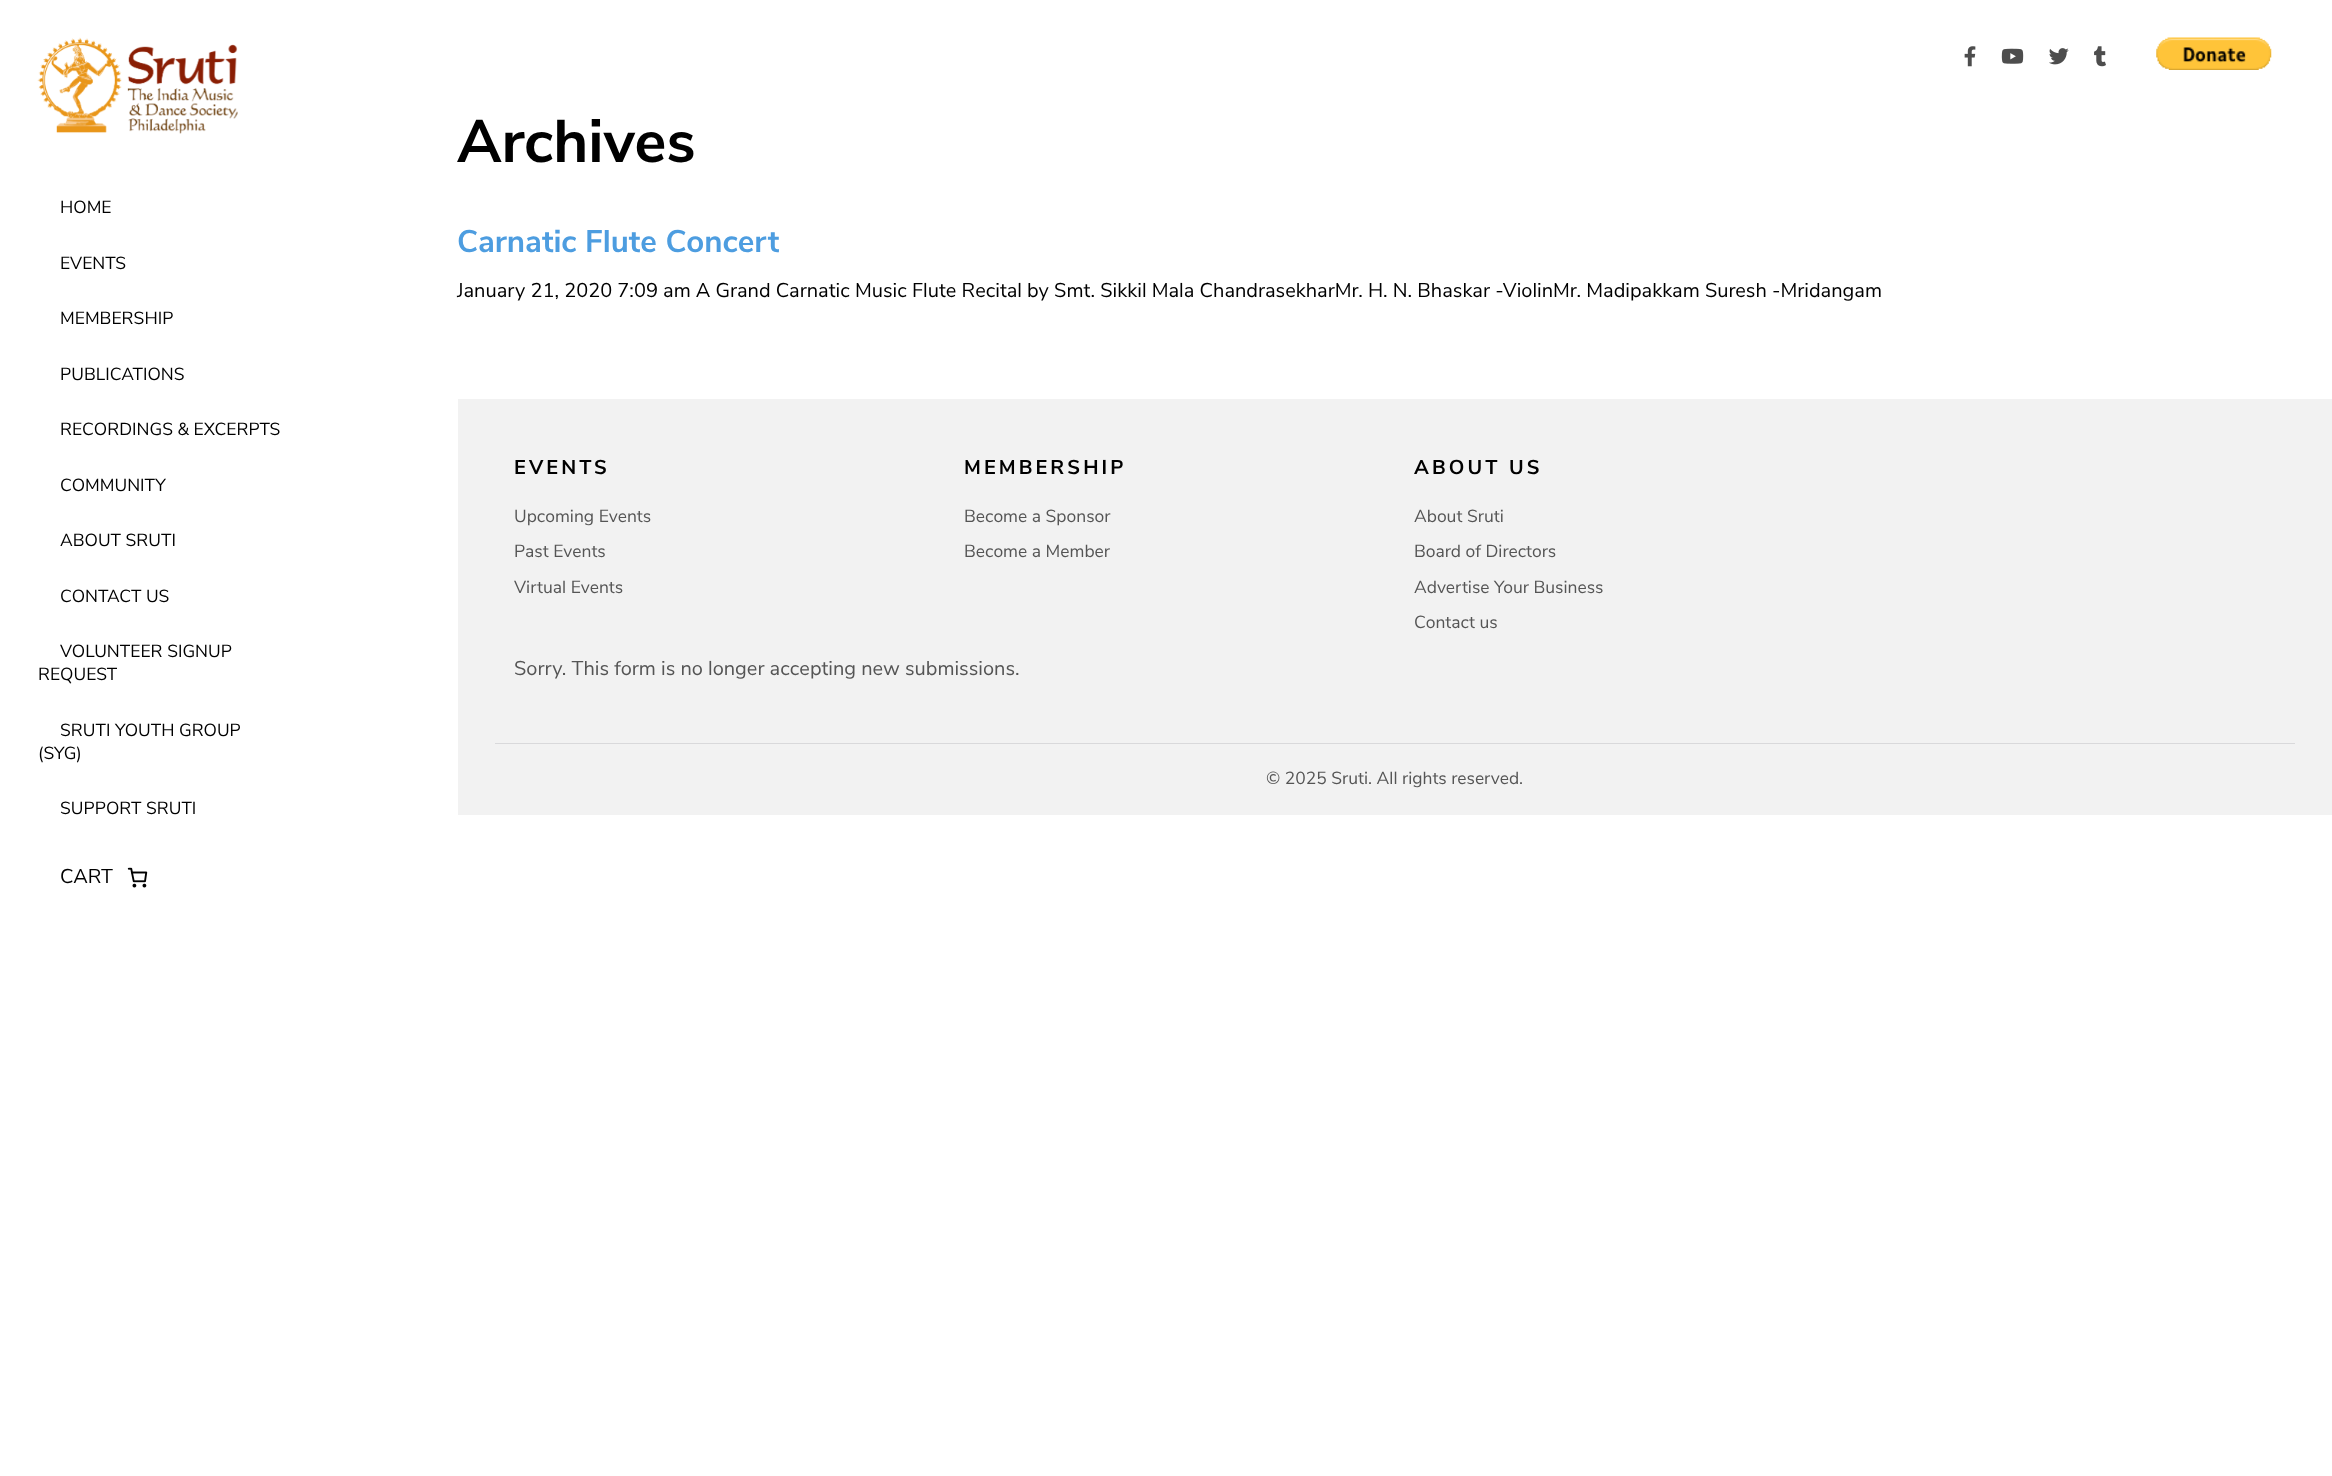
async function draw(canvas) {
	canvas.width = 2332;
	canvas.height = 1476;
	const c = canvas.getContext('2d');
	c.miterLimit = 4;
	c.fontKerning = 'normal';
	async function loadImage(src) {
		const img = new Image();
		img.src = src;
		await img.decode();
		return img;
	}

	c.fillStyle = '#fff';
	c.fillRect(0, 0, 2332, 1476);
	c.drawImage(await loadImage('img1.png'), 37, 37, 201, 97);
	c.font = '17.5px Nunito Sans';
	c.fillStyle = '#000';
	for (const [text, x, y] of [
		['HOME', 60, 213],
		['EVENTS', 60, 269],
		['MEMBERSHIP', 60, 324],
		['PUBLICATIONS', 60, 380],
		['RECORDINGS & EXCERPTS', 60, 435],
		['COMMUNITY', 60, 491],
		['ABOUT SRUTI', 60, 546],
		['CONTACT US', 60, 602],
		['VOLUNTEER SIGNUP', 60, 657],
		['REQUEST', 38, 680],
		['SRUTI YOUTH GROUP', 60, 736],
		['(SYG)', 38, 759],
		['SUPPORT SRUTI', 60, 814],
	]) {
		c.fillText(text, x, y);
	}
	c.font = '20px Nunito Sans';
	c.fillText('CART', 60, 883);
	c.drawImage(await loadImage('img2.png'), 127, 867, 21, 21);
	c.drawImage(await loadImage('img3.png'), 1964, 46, 12, 21);
	c.drawImage(await loadImage('img4.png'), 2001, 48, 23, 16);
	c.drawImage(await loadImage('img5.png'), 2049, 48, 20, 17);
	c.drawImage(await loadImage('img6.png'), 2094, 46, 12, 21);
	c.drawImage(await loadImage('img7.png'), 2156, 37, 116, 33);
	c.font = 'bold 60px Nunito Sans';
	c.fillText('Archives', 457, 162);
	c.font = 'bold 31.25px Nunito Sans';
	c.fillStyle = '#4d9de0';
	c.fillText('Carnatic Flute Concert', 457, 252);
	c.font = '20px Nunito Sans';
	c.fillStyle = '#000';
	c.fillText('January 21, 2020 7:09 am A Grand Carnatic Music Flute Recital by Smt. Sikkil Mala ChandrasekharMr. H. N. Bhaskar -ViolinMr. Madipakkam Suresh -Mridangam', 457, 297);
	c.fillStyle = '#f2f2f2';
	c.fillRect(458, 399, 1874, 416);
	c.letterSpacing = '3.1px';
	c.font = 'bold 20px Nunito Sans';
	c.fillStyle = '#000';
	c.fillText('EVENTS', 514, 474);
	c.letterSpacing = '0px';
	c.font = '17.5px Nunito Sans';
	c.fillStyle = '#555';
	for (const [text, x, y] of [
		['Upcoming Events', 514, 522],
		['Past Events', 514, 557],
		['Virtual Events', 514, 593],
	]) {
		c.fillText(text, x, y);
	}
	c.letterSpacing = '3.1px';
	c.font = 'bold 20px Nunito Sans';
	c.fillStyle = '#000';
	c.fillText('MEMBERSHIP', 964, 474);
	c.letterSpacing = '0px';
	c.font = '17.5px Nunito Sans';
	c.fillStyle = '#555';
	c.fillText('Become a Sponsor', 964, 522);
	c.fillText('Become a Member', 964, 557);
	c.letterSpacing = '3.1px';
	c.font = 'bold 20px Nunito Sans';
	c.fillStyle = '#000';
	c.fillText('ABOUT US', 1414, 474);
	c.letterSpacing = '0px';
	c.font = '17.5px Nunito Sans';
	c.fillStyle = '#555';
	for (const [text, x, y] of [
		['About Sruti', 1414, 522],
		['Board of Directors', 1414, 557],
		['Advertise Your Business', 1414, 593],
		['Contact us', 1414, 628],
	]) {
		c.fillText(text, x, y);
	}
	c.font = '20px Nunito Sans';
	c.fillText('Sorry. This form is no longer accepting new submissions.', 514, 675);
	c.fillStyle = '#d9d9db';
	c.fillRect(495, 743, 1800, 1);
	c.font = '17.5px Nunito Sans';
	c.fillStyle = '#555';
	c.fillText('© 2025 Sruti. All rights reserved.', 1266, 784);
}

draw(document.querySelector('canvas'));
